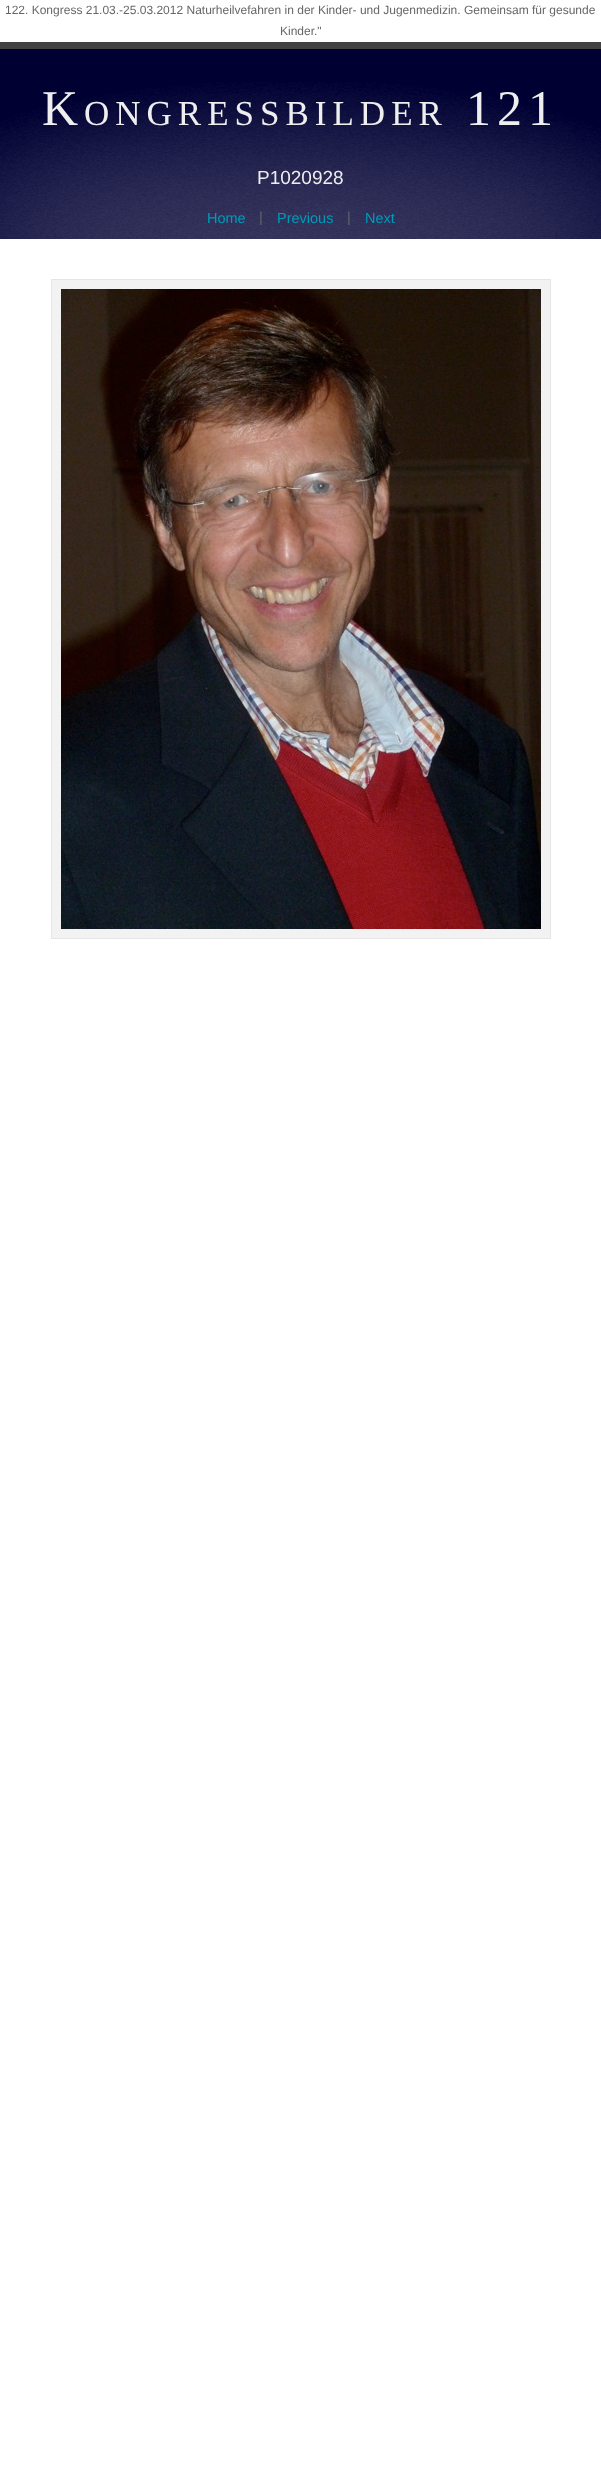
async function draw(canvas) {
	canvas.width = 601;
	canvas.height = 2465;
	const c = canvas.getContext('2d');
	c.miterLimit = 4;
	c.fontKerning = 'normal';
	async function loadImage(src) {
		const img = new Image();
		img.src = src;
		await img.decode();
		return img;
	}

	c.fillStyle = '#fff';
	c.fillRect(0, 0, 601, 2465);
	c.font = '12px Liberation Sans';
	c.fillStyle = '#666';
	c.fillText('122. Kongress 21.03.-25.03.2012 Naturheilvefahren in der Kinder- und Jugenmedizin. Gemeinsam für gesunde', 5, 14);
	c.fillText('Kinder."', 280, 35);
	c.fillStyle = '#003';
	c.fillRect(0, 49, 601, 190);
	c.drawImage(await loadImage('img1.png'), 0, 82, 601, 157);
	c.fillStyle = '#424242';
	c.fillRect(0, 42, 601, 7);
	c.letterSpacing = '6px';
	c.font = '50px Liberation Serif';
	c.fillStyle = '#eee';
	c.fillText('K', 42, 125);
	c.font = '35px Liberation Serif';
	c.fillText('ONGRESSBILDER', 84, 125);
	c.font = '50px Liberation Serif';
	c.fillText('121', 466, 125);
	c.letterSpacing = '0px';
	c.font = '19px Liberation Sans';
	c.fillText('P1020928', 257, 184);
	c.font = '14.5px Liberation Sans';
	c.fillStyle = '#009bb8';
	c.fillText('Home', 207, 223);
	c.fillStyle = '#666';
	c.fillText('|', 259, 222);
	c.fillStyle = '#009bb8';
	c.fillText('Previous', 277, 223);
	c.fillStyle = '#666';
	c.fillText('|', 347, 222);
	c.fillStyle = '#009bb8';
	c.fillText('Next', 365, 223);
	c.fillStyle = '#f2f2f2';
	c.beginPath();
	c.rect(51.5, 279.5, 499, 659);
	c.fill();
	c.strokeStyle = '#e5e5e5';
	c.stroke();
	c.drawImage(await loadImage('img2.png'), 61, 289, 480, 640);
}

draw(document.querySelector('canvas'));
